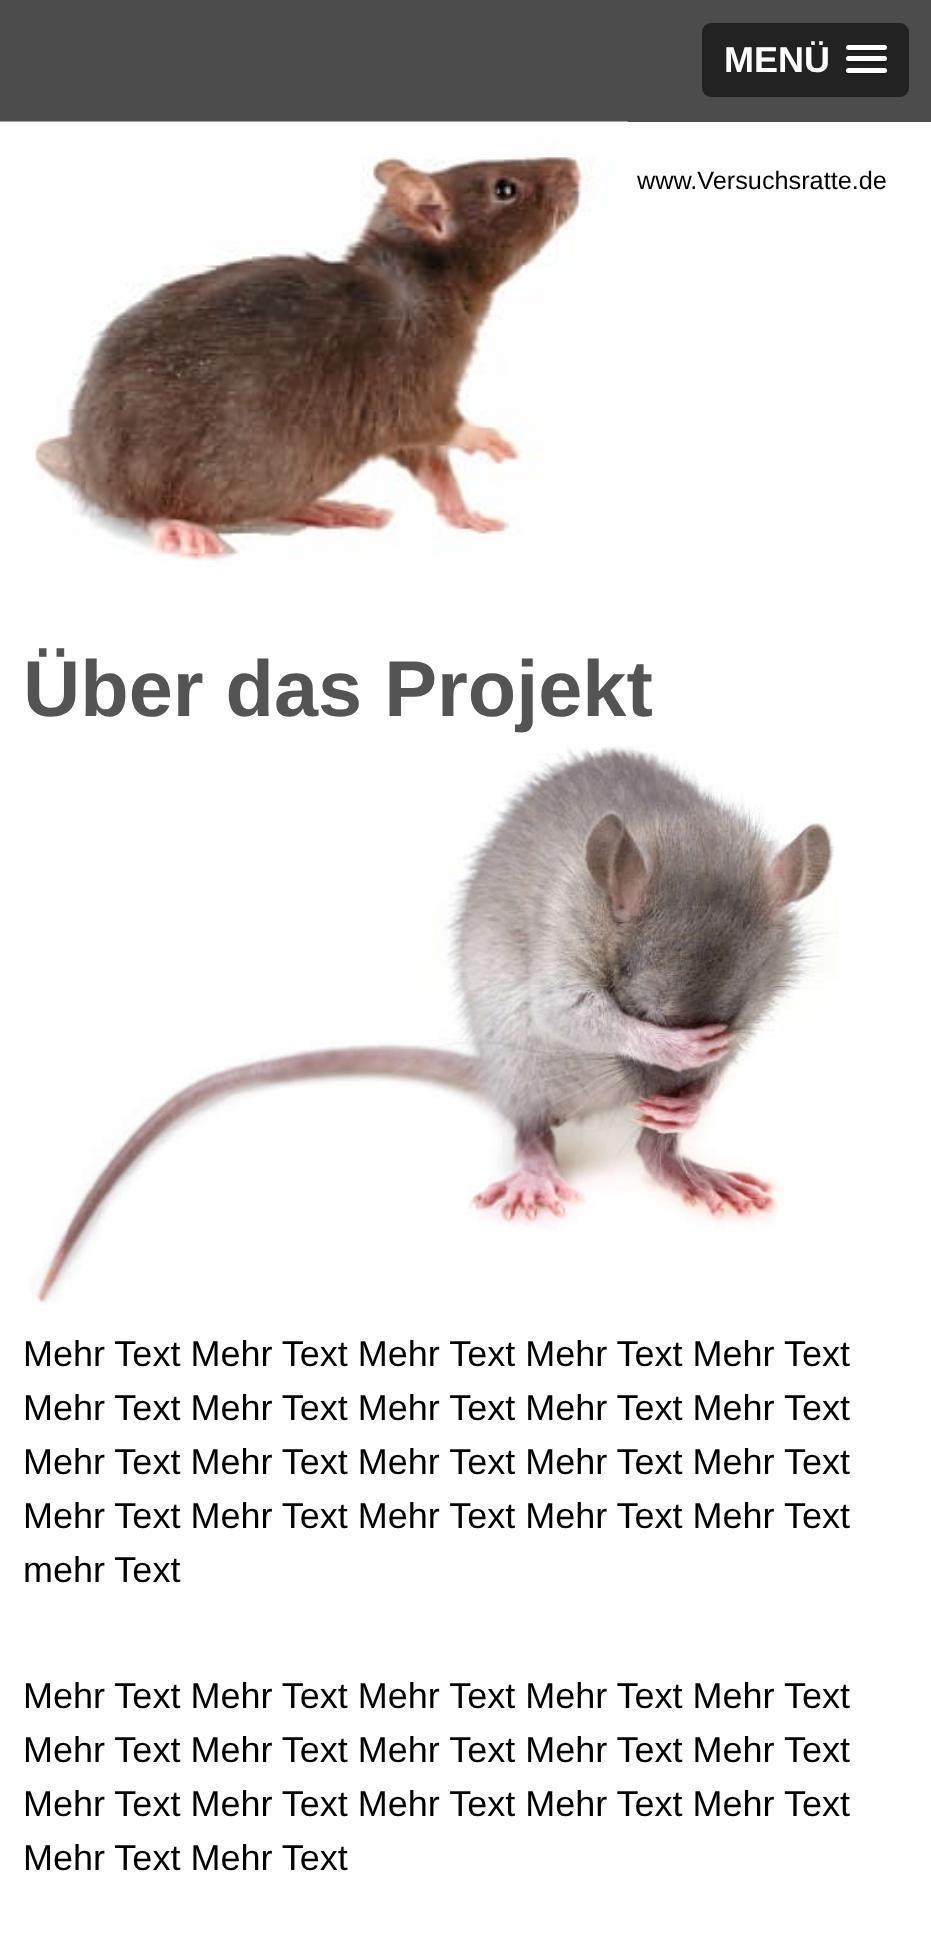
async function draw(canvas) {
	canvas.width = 931;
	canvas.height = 1953;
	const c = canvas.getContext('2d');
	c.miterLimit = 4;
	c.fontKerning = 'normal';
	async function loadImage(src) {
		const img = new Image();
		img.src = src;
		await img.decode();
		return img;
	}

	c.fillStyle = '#4c4c4c';
	c.fillRect(0, 0, 931, 1953);
	c.fillStyle = '#222';
	c.beginPath();
	c.roundRect(702, 23, 207, 74, 9);
	c.fill();
	c.font = 'bold 36px Liberation Sans';
	c.fillStyle = '#fff';
	c.fillText('MENÜ', 724, 72);
	c.fillStyle = '#1a1a1a';
	c.beginPath();
	c.moveTo(846, 48);
	c.bezierCurveTo(844, 53, 854, 52, 854, 52);
	c.lineTo(878, 52);
	c.bezierCurveTo(880, 52, 886, 53, 887, 50);
	c.lineTo(886, 48);
	c.bezierCurveTo(886, 49, 885, 50, 884, 50);
	c.lineTo(848, 50);
	c.bezierCurveTo(847, 50, 847, 49, 846, 48);
	c.closePath();
	c.fill();
	c.fillStyle = '#fff';
	c.beginPath();
	c.roundRect(846, 45, 41, 5, 2.5);
	c.fill();
	c.fillStyle = '#1a1a1a';
	c.beginPath();
	c.moveTo(847, 60);
	c.bezierCurveTo(843, 65, 854, 64, 854, 64);
	c.lineTo(866, 64);
	c.bezierCurveTo(870, 64, 884, 65, 886, 63);
	c.bezierCurveTo(887, 62, 887, 61, 886, 60);
	c.lineTo(885, 61);
	c.lineTo(848, 61);
	c.closePath();
	c.fill();
	c.fillStyle = '#fff';
	c.beginPath();
	c.roundRect(846, 56, 41, 5, 2.5);
	c.fill();
	c.fillStyle = '#1a1a1a';
	c.beginPath();
	c.moveTo(846, 71);
	c.bezierCurveTo(843, 76, 854, 75, 854, 75);
	c.lineTo(878, 75);
	c.bezierCurveTo(880, 75, 886, 76, 887, 73);
	c.lineTo(886, 71);
	c.lineTo(885, 72);
	c.lineTo(848, 72);
	c.closePath();
	c.fill();
	c.fillStyle = '#fff';
	c.beginPath();
	c.roundRect(846, 68, 41, 5, 2.5);
	c.fill();
	c.fillRect(0, 122, 931, 1831);
	c.drawImage(await loadImage('img1.png'), 0, 121, 628, 446);
	c.font = '25.25px Liberation Sans';
	c.fillStyle = '#000';
	c.fillText('www.Versuchsratte.de', 637, 189);
	c.font = 'bold 79.25px Liberation Sans';
	c.fillStyle = '#545454';
	c.fillText('Über das Projekt', 23, 716);
	c.drawImage(await loadImage('img2.png'), 29, 744, 810, 561);
	c.font = '36px Liberation Sans';
	c.fillStyle = '#000';
	for (const [text, x, y] of [
		['Mehr Text Mehr Text Mehr Text Mehr Text Mehr Text', 23, 1366],
		['Mehr Text Mehr Text Mehr Text Mehr Text Mehr Text', 23, 1420],
		['Mehr Text Mehr Text Mehr Text Mehr Text Mehr Text', 23, 1474],
		['Mehr Text Mehr Text Mehr Text Mehr Text Mehr Text', 23, 1528],
		['mehr Text', 23, 1582],
		['Mehr Text Mehr Text Mehr Text Mehr Text Mehr Text', 23, 1708],
		['Mehr Text Mehr Text Mehr Text Mehr Text Mehr Text', 23, 1762],
		['Mehr Text Mehr Text Mehr Text Mehr Text Mehr Text', 23, 1816],
		['Mehr Text Mehr Text', 23, 1870],
	]) {
		c.fillText(text, x, y);
	}
}

draw(document.querySelector('canvas'));
